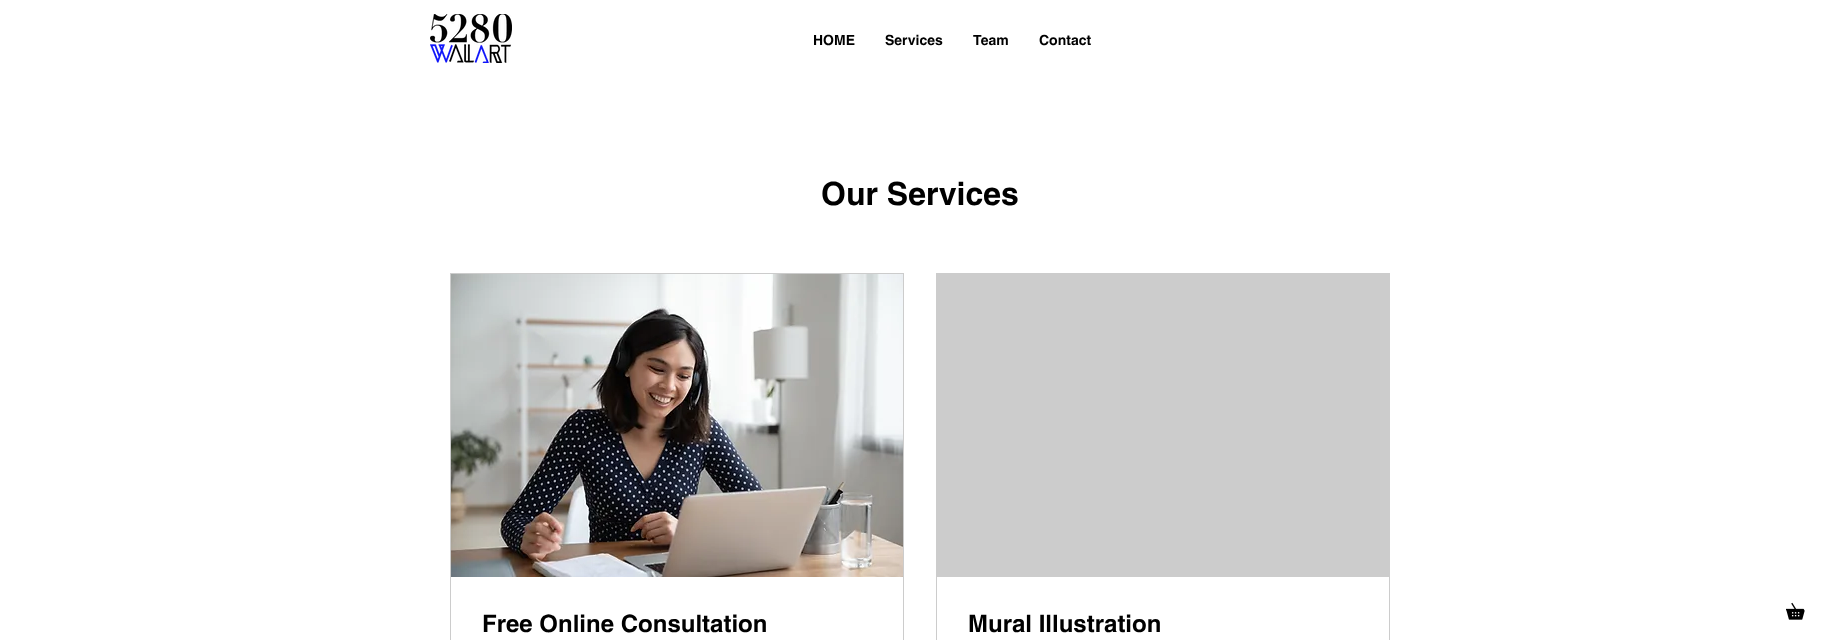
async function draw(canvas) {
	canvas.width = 1840;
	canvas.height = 640;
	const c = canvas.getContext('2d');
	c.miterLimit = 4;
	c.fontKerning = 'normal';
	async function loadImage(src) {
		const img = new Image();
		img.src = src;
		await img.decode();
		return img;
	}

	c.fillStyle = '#fff';
	c.fillRect(0, 0, 1840, 640);
	c.drawImage(await loadImage('img1.png'), 430, 14, 82, 49);
	c.font = 'bold 14px helvetica';
	c.fillStyle = '#000';
	for (const [text, x, y] of [
		['HOME', 813, 45],
		['Services', 885, 45],
		['Team', 973, 45],
		['Contact', 1039, 45],
	]) {
		c.fillText(text, x, y);
	}
	c.font = 'bold 32px helvetica';
	c.fillText('Our Services', 821, 205);
	c.strokeStyle = '#ccc';
	c.strokeRect(450.5, 273.5, 453, 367);
	c.drawImage(await loadImage('img2.png'), 451, 274, 452, 303);
	c.font = 'bold 24px helvetica';
	c.fillText('Free Online Consultation', 482, 632);
	c.strokeRect(936.5, 273.5, 453, 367);
	c.fillStyle = '#ccc';
	c.fillRect(937, 274, 452, 303);
	c.fillStyle = '#000';
	c.fillText('Mural Illustration', 968, 632);
	c.drawImage(await loadImage('img3.png'), 1786, 602, 19, 18);
}

draw(document.querySelector('canvas'));
